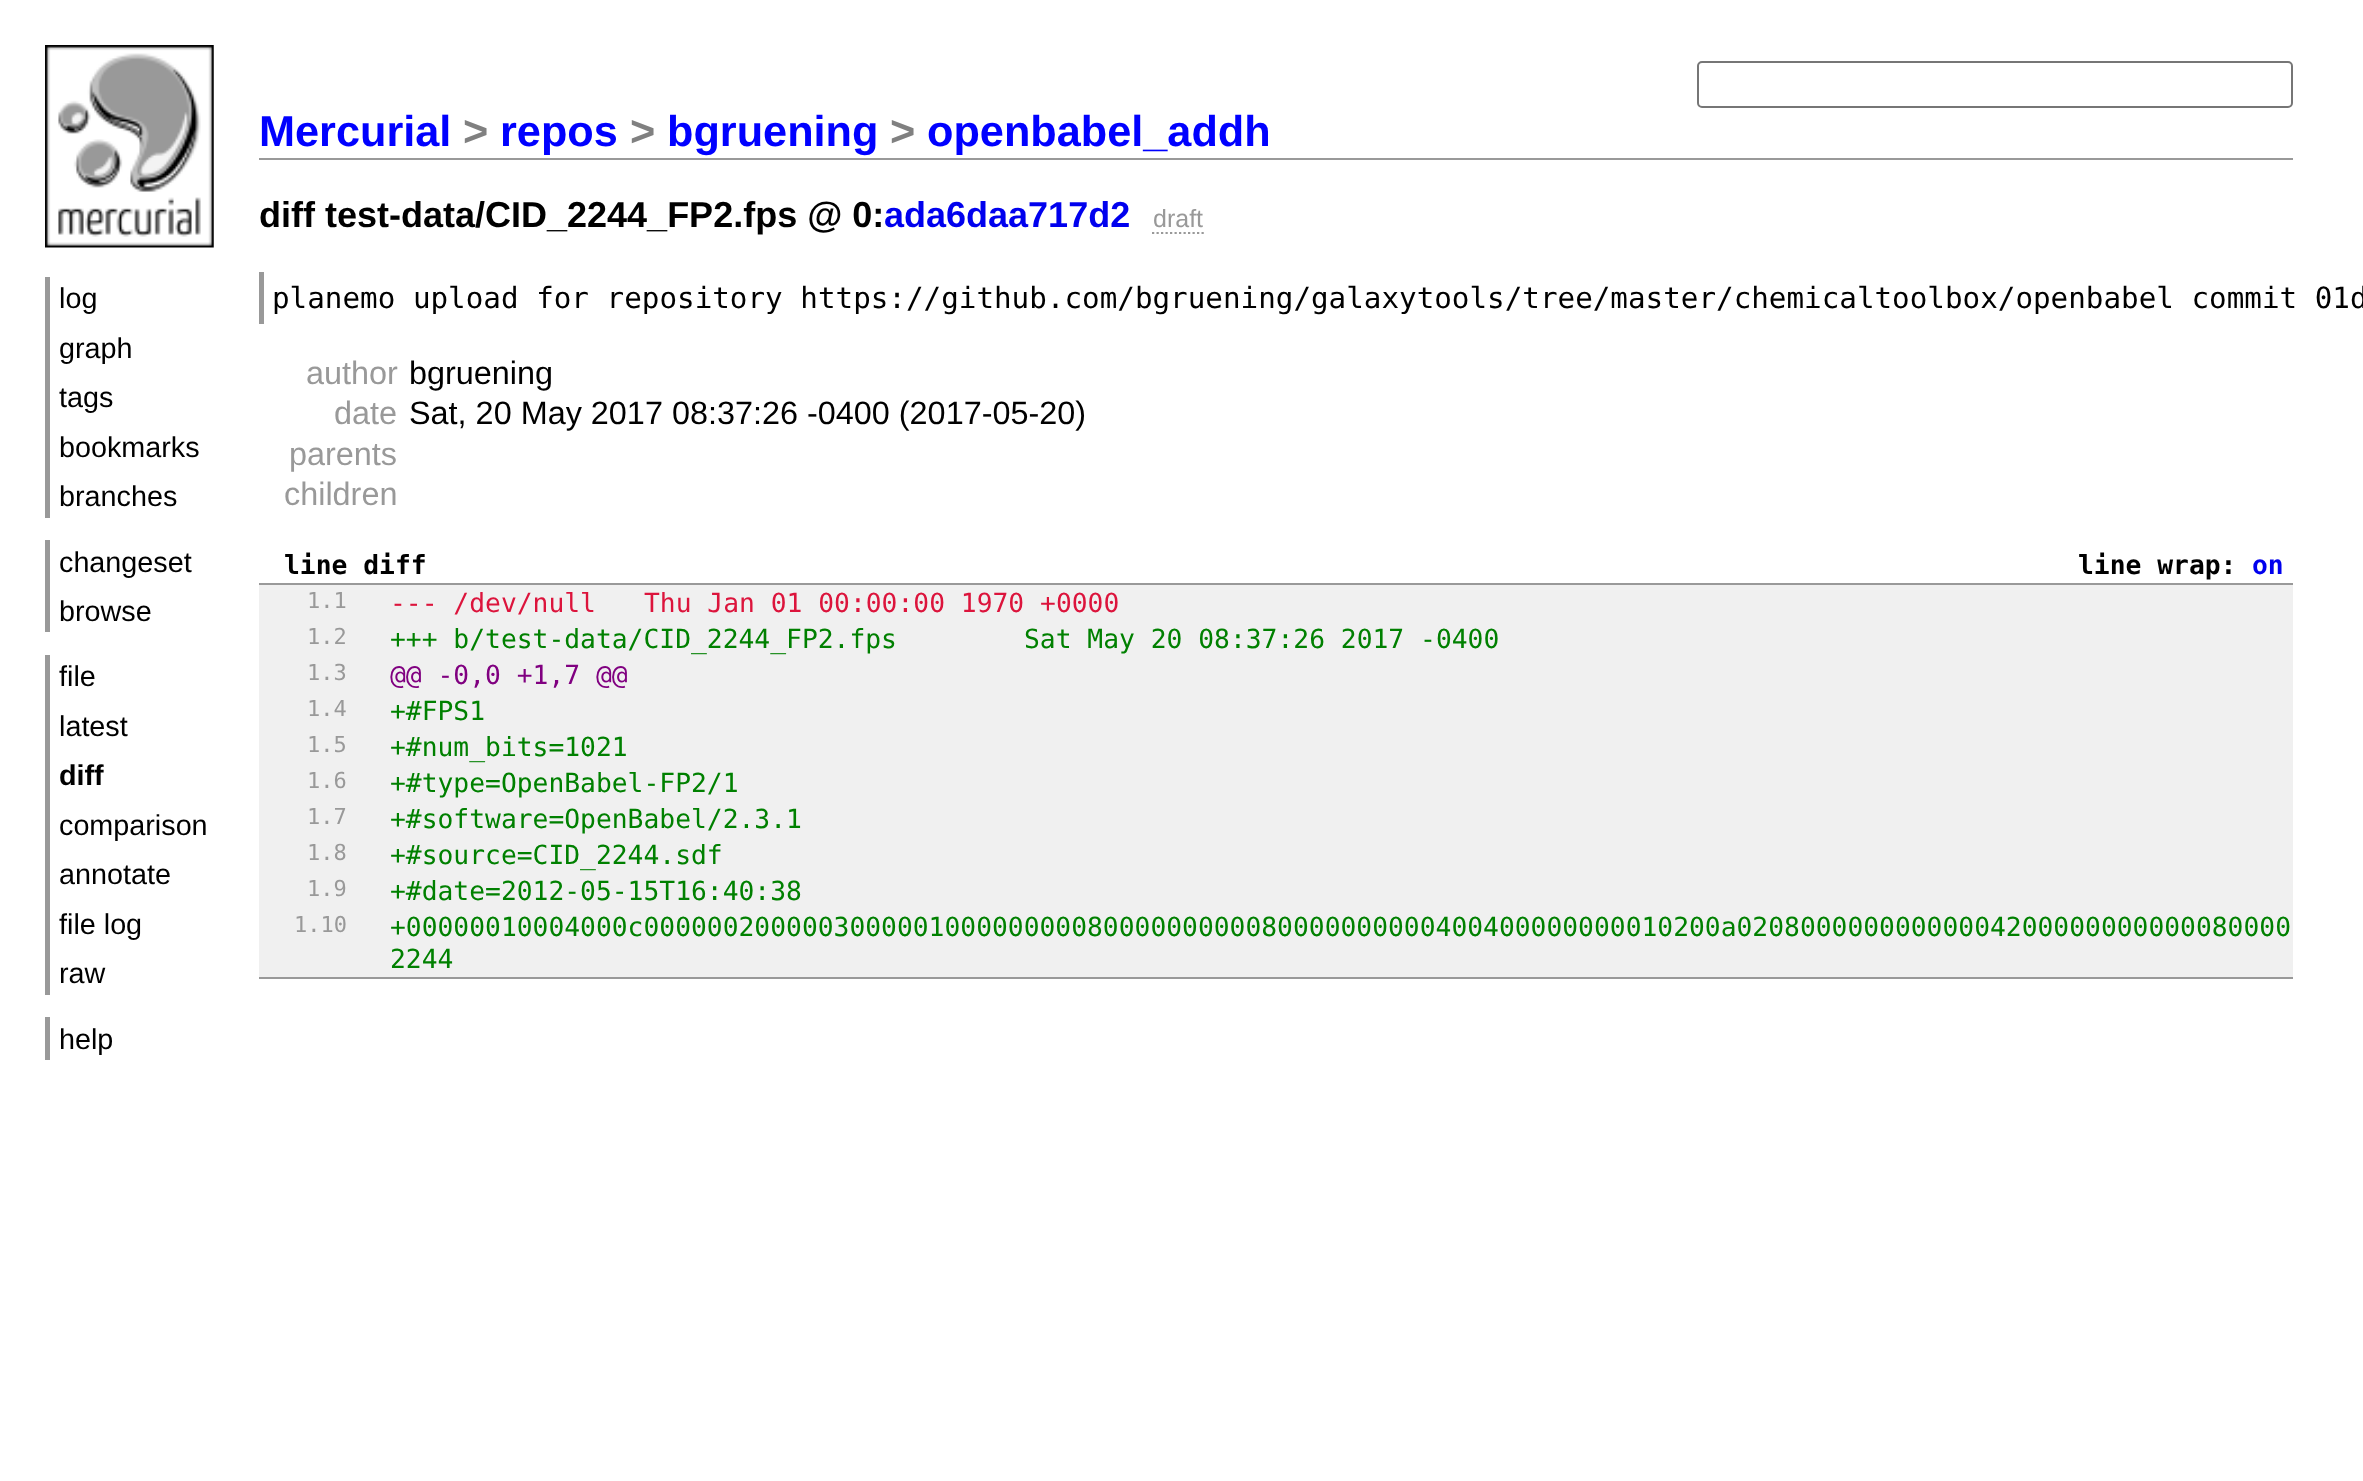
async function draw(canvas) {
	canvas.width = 2363;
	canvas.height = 1481;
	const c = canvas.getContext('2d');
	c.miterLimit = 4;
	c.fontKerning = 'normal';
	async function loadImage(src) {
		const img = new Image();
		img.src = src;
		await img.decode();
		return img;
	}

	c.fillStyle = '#fff';
	c.fillRect(0, 0, 2363, 1481);
	c.drawImage(await loadImage('img1.png'), 45, 45, 169, 203);
	c.fillStyle = '#999';
	c.fillRect(45, 277, 5, 241);
	c.font = '28.75px Liberation Sans';
	c.fillStyle = '#000';
	for (const [text, x, y] of [
		['log', 59, 308],
		['graph', 59, 358],
		['tags', 59, 407],
		['bookmarks', 59, 457],
		['branches', 59, 506],
	]) {
		c.fillText(text, x, y);
	}
	c.fillStyle = '#999';
	c.fillRect(45, 540, 5, 92);
	c.fillStyle = '#000';
	c.fillText('changeset', 59, 572);
	c.fillText('browse', 59, 621);
	c.fillStyle = '#999';
	c.fillRect(45, 655, 5, 340);
	c.fillStyle = '#000';
	c.fillText('file', 59, 686);
	c.fillText('latest', 59, 736);
	c.font = 'bold 28.75px Liberation Sans';
	c.fillText('diff', 59, 785);
	c.font = '28.75px Liberation Sans';
	for (const [text, x, y] of [
		['comparison', 59, 835],
		['annotate', 59, 884],
		['file log', 59, 934],
		['raw', 59, 983],
	]) {
		c.fillText(text, x, y);
	}
	c.fillStyle = '#999';
	c.fillRect(45, 1017, 5, 43);
	c.fillStyle = '#000';
	c.fillText('help', 59, 1049);
	c.beginPath();
	c.roundRect(1698, 62, 594, 45, 4);
	c.strokeStyle = '#767676';
	c.lineWidth = 2;
	c.stroke();
	c.fillStyle = '#999';
	c.fillRect(259, 158, 2034, 2);
	c.font = 'bold 43.25px Liberation Sans';
	c.fillStyle = '#00f';
	c.fillText('Mercurial', 259, 146);
	c.fillStyle = '#808080';
	c.fillText('>', 463, 146);
	c.fillStyle = '#00f';
	c.fillText('repos', 500, 146);
	c.fillStyle = '#808080';
	c.fillText('>', 630, 146);
	c.fillStyle = '#00f';
	c.fillText('bgruening', 667, 146);
	c.fillStyle = '#808080';
	c.fillText('>', 890, 146);
	c.fillStyle = '#00f';
	c.fillText('openbabel_addh', 927, 146);
	c.font = 'bold 36px Liberation Sans';
	c.fillStyle = '#000';
	c.fillText('diff test-data/CID_2244_FP2.fps @ 0:', 259, 227);
	c.fillStyle = '#00e';
	c.fillText('ada6daa717d2', 884, 227);
	c.font = '25px Liberation Sans';
	c.fillStyle = '#999';
	c.fillText('draft', 1153, 227);
	c.beginPath();
	c.moveTo(1152, 233);
	c.lineTo(1204, 233);
	c.strokeStyle = '#999';
	c.lineWidth = 2.2;
	c.setLineDash([2.25, 2.25]);
	c.stroke();
	c.fillRect(259, 272, 5, 52);
	c.font = '29.25px DejaVu Sans Mono';
	c.fillStyle = '#000';
	c.fillText('planemo upload for repository https://github.com/bgruening/galaxytools/tree/master/chemicaltoolbox/openbabel commit 01d', 272, 308);
	c.font = '32.4px Liberation Sans';
	c.fillStyle = '#999';
	c.fillText('author', 306, 384);
	c.fillStyle = '#000';
	c.fillText('bgruening', 409, 384);
	c.fillStyle = '#999';
	c.fillText('date', 334, 424);
	c.fillStyle = '#000';
	c.fillText('Sat, 20 May 2017 08:37:26 -0400 (2017-05-20)', 409, 424);
	c.fillStyle = '#999';
	c.fillText('parents', 289, 465);
	c.fillText('children', 284, 505);
	c.fillRect(259, 583, 2034, 2);
	c.font = 'bold 26.32px DejaVu Sans Mono';
	c.fillStyle = '#000';
	c.fillText('line diff', 284, 574);
	c.fillText('line wrap:', 2078, 574);
	c.fillStyle = '#00e';
	c.fillText('on', 2252, 574);
	c.fillStyle = '#f0f0f0';
	c.fillRect(259, 585, 2034, 392);
	c.fillStyle = '#999';
	c.fillRect(259, 977, 2034, 2);
	c.font = '22px DejaVu Sans Mono';
	c.fillText('1.1', 307, 608);
	c.font = '26.32px DejaVu Sans Mono';
	c.fillStyle = '#dc143c';
	c.fillText('--- /dev/null', 390, 612);
	c.fillText('Thu Jan 01 00:00:00 1970 +0000', 644, 612);
	c.font = '22px DejaVu Sans Mono';
	c.fillStyle = '#999';
	c.fillText('1.2', 307, 644);
	c.font = '26.32px DejaVu Sans Mono';
	c.fillStyle = '#008000';
	c.fillText('+++ b/test-data/CID_2244_FP2.fps', 390, 648);
	c.fillText('Sat May 20 08:37:26 2017 -0400', 1024, 648);
	c.font = '22px DejaVu Sans Mono';
	c.fillStyle = '#999';
	c.fillText('1.3', 307, 680);
	c.font = '26.32px DejaVu Sans Mono';
	c.fillStyle = '#800080';
	c.fillText('@@ -0,0 +1,7 @@', 390, 684);
	c.font = '22px DejaVu Sans Mono';
	c.fillStyle = '#999';
	c.fillText('1.4', 307, 716);
	c.font = '26.32px DejaVu Sans Mono';
	c.fillStyle = '#008000';
	c.fillText('+#FPS1', 390, 720);
	c.font = '22px DejaVu Sans Mono';
	c.fillStyle = '#999';
	c.fillText('1.5', 307, 752);
	c.font = '26.32px DejaVu Sans Mono';
	c.fillStyle = '#008000';
	c.fillText('+#num_bits=1021', 390, 756);
	c.font = '22px DejaVu Sans Mono';
	c.fillStyle = '#999';
	c.fillText('1.6', 307, 788);
	c.font = '26.32px DejaVu Sans Mono';
	c.fillStyle = '#008000';
	c.fillText('+#type=OpenBabel-FP2/1', 390, 792);
	c.font = '22px DejaVu Sans Mono';
	c.fillStyle = '#999';
	c.fillText('1.7', 307, 824);
	c.font = '26.32px DejaVu Sans Mono';
	c.fillStyle = '#008000';
	c.fillText('+#software=OpenBabel/2.3.1', 390, 828);
	c.font = '22px DejaVu Sans Mono';
	c.fillStyle = '#999';
	c.fillText('1.8', 307, 860);
	c.font = '26.32px DejaVu Sans Mono';
	c.fillStyle = '#008000';
	c.fillText('+#source=CID_2244.sdf', 390, 864);
	c.font = '22px DejaVu Sans Mono';
	c.fillStyle = '#999';
	c.fillText('1.9', 307, 896);
	c.font = '26.32px DejaVu Sans Mono';
	c.fillStyle = '#008000';
	c.fillText('+#date=2012-05-15T16:40:38', 390, 900);
	c.font = '22px DejaVu Sans Mono';
	c.fillStyle = '#999';
	c.fillText('1.10', 294, 932);
	c.font = '26.32px DejaVu Sans Mono';
	c.fillStyle = '#008000';
	c.fillText('+00000010004000c00000020000030000010000000008000000000080000000000400400000000010200a02080000000000004200000000000080000', 390, 936);
	c.fillText('2244', 390, 968);
}

draw(document.querySelector('canvas'));
